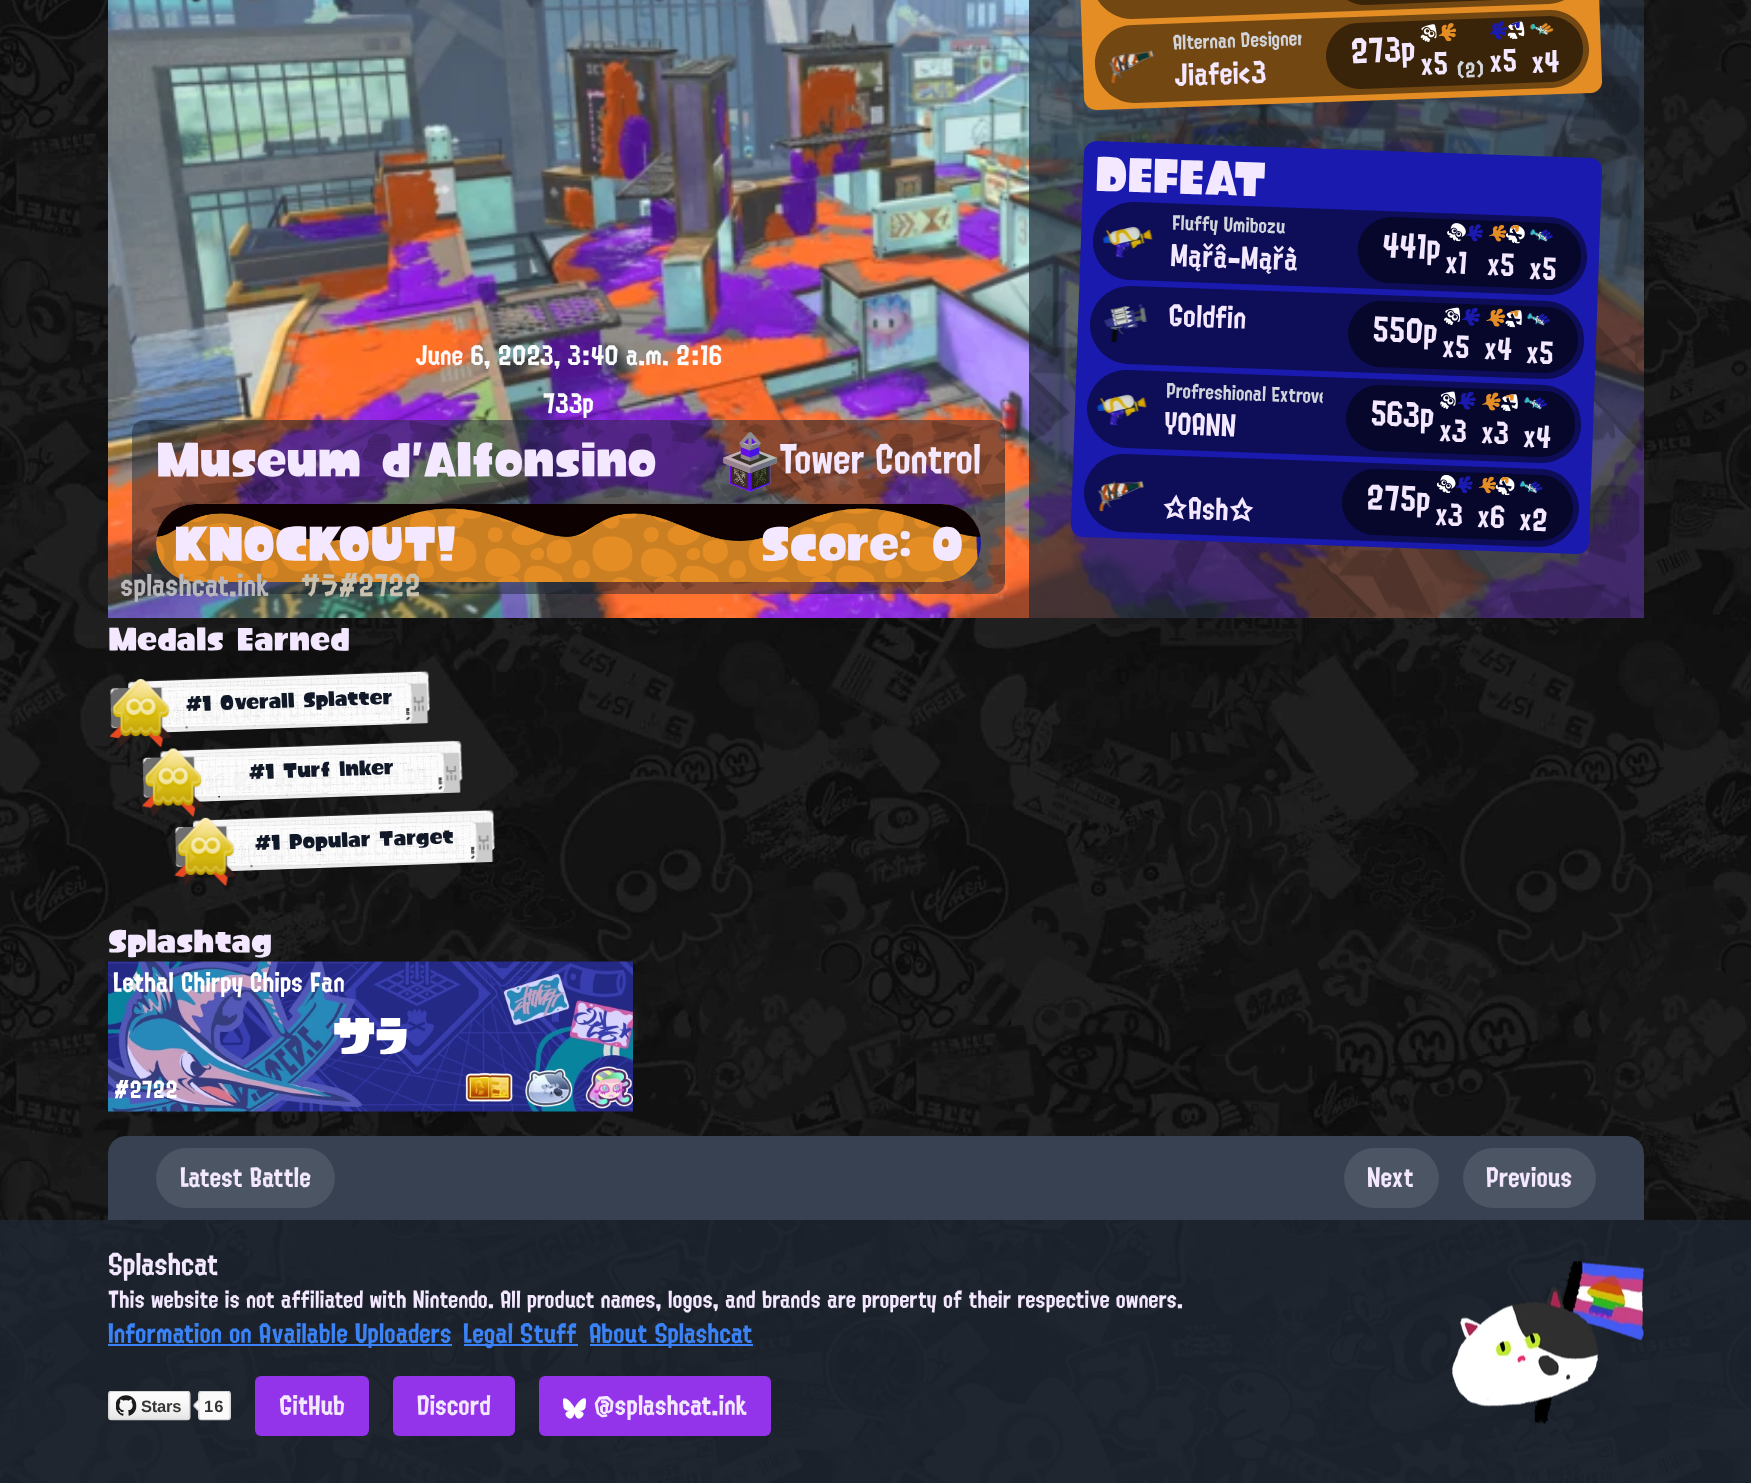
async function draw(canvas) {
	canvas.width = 1751;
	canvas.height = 1483;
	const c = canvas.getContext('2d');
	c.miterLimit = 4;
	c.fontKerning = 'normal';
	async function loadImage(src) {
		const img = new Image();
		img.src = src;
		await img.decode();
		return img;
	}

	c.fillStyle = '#fff';
	c.fillRect(0, 0, 1751, 1483);
	c.drawImage(await loadImage('img1.png'), 0, 0, 1751, 1483);
	c.drawImage(await loadImage('img2.png'), 108, 0, 1536, 618);
	c.font = '24px "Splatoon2"';
	c.fillStyle = '#f9fafb';
	c.fillText('June 6, 2023, 3:40 a.m. 2:16', 415, 364);
	c.fillText('733p', 543, 412);
	c.fillStyle = '#1f2937b3';
	c.fillRect(1029, 0, 615, 618);
	c.drawImage(await loadImage('img3.png'), 1029, 0, 615, 618);
	c.fillStyle = '#e38d24';
	c.beginPath();
	c.moveTo(1083, -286);
	c.lineTo(1577, -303);
	c.bezierCurveTo(1584, -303, 1589, -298, 1589, -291);
	c.lineTo(1602, 80);
	c.bezierCurveTo(1603, 87, 1597, 93, 1591, 93);
	c.lineTo(1097, 110);
	c.bezierCurveTo(1090, 110, 1084, 105, 1084, 98);
	c.lineTo(1071, -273);
	c.bezierCurveTo(1071, -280, 1076, -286, 1083, -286);
	c.closePath();
	c.fill();
	c.fillStyle = '#724712';
	c.beginPath();
	c.moveTo(1130, -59);
	c.lineTo(1546, -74);
	c.bezierCurveTo(1567, -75, 1586, -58, 1586, -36);
	c.bezierCurveTo(1587, -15, 1570, 3, 1549, 4);
	c.lineTo(1132, 19);
	c.bezierCurveTo(1111, 19, 1093, 3, 1092, -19);
	c.bezierCurveTo(1091, -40, 1108, -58, 1130, -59);
	c.closePath();
	c.fill();
	c.fillStyle = '#392409';
	c.beginPath();
	c.moveTo(1363, -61);
	c.lineTo(1546, -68);
	c.bezierCurveTo(1564, -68, 1580, -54, 1580, -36);
	c.bezierCurveTo(1581, -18, 1567, -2, 1548, -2);
	c.lineTo(1365, 5);
	c.bezierCurveTo(1347, 5, 1331, -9, 1331, -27);
	c.bezierCurveTo(1330, -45, 1344, -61, 1363, -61);
	c.closePath();
	c.fill();
	c.fillStyle = '#724712';
	c.beginPath();
	c.moveTo(1133, 25);
	c.lineTo(1549, 10);
	c.bezierCurveTo(1570, 9, 1588, 26, 1589, 48);
	c.bezierCurveTo(1590, 69, 1573, 87, 1552, 88);
	c.lineTo(1135, 103);
	c.bezierCurveTo(1114, 103, 1096, 87, 1095, 65);
	c.bezierCurveTo(1094, 44, 1111, 25, 1133, 25);
	c.closePath();
	c.fill();
	c.drawImage(await loadImage('img4.png'), 1108, 50, 47, 34);
	c.save();
	c.beginPath();
	c.moveTo(1172, 29.5);
	c.lineTo(1301, 25);
	c.lineTo(1302, 49);
	c.lineTo(1172.5, 53.5);
	c.closePath();
	c.clip();
	c.font = '18px "Splatoon2"';
	c.fillStyle = '#d1d5db';
	c.save();
	c.translate(1173, 49);
	c.rotate(-2 * Math.PI / 180);
	c.fillText('Alternan Designer', 0, 0);
	c.restore();
	c.restore();
	c.font = '27px "Splatoon2"';
	c.fillStyle = '#f3e8ff';
	c.save();
	c.translate(1174, 85);
	c.rotate(-2 * Math.PI / 180);
	c.fillText('Jiafei<3', 0, 0);
	c.restore();
	c.fillStyle = '#392409';
	c.beginPath();
	c.moveTo(1358, 23);
	c.lineTo(1549, 16);
	c.bezierCurveTo(1567, 16, 1583, 30, 1583, 48);
	c.bezierCurveTo(1584, 66, 1570, 81, 1551, 82);
	c.lineTo(1360, 89);
	c.bezierCurveTo(1342, 89, 1327, 75, 1326, 57);
	c.bezierCurveTo(1326, 39, 1340, 23, 1358, 23);
	c.closePath();
	c.fill();
	c.font = '30px "Splatoon2"';
	c.fillStyle = '#f3e8ff';
	c.save();
	c.translate(1351, 62);
	c.rotate(-2 * Math.PI / 180);
	c.fillText('273p', 0, 0);
	c.restore();
	c.drawImage(await loadImage('img5.png'), 1420, 23, 36, 19);
	c.font = '27px "Splatoon2"';
	c.save();
	c.translate(1421, 74);
	c.rotate(-2 * Math.PI / 180);
	c.fillText('x5', 0, 0);
	c.restore();
	c.font = '18px "Splatoon2"';
	c.fillStyle = '#d1d5db';
	c.save();
	c.translate(1457, 77);
	c.rotate(-2 * Math.PI / 180);
	c.fillText('(2)', 0, 0);
	c.restore();
	c.drawImage(await loadImage('img6.png'), 1488, 21, 37, 19);
	c.font = '27px "Splatoon2"';
	c.fillStyle = '#f3e8ff';
	c.save();
	c.translate(1490, 71);
	c.rotate(-2 * Math.PI / 180);
	c.fillText('x5', 0, 0);
	c.restore();
	c.drawImage(await loadImage('img7.png'), 1530, 22, 24, 14);
	c.save();
	c.translate(1532, 72);
	c.rotate(-2 * Math.PI / 180);
	c.fillText('x4', 0, 0);
	c.restore();
	c.fillStyle = '#1a1aaf';
	c.beginPath();
	c.moveTo(1097, 141);
	c.lineTo(1591, 158);
	c.bezierCurveTo(1597, 158, 1603, 164, 1602, 171);
	c.lineTo(1589, 542);
	c.bezierCurveTo(1589, 549, 1584, 554, 1577, 554);
	c.lineTo(1083, 537);
	c.bezierCurveTo(1076, 537, 1071, 531, 1071, 524);
	c.lineTo(1084, 153);
	c.bezierCurveTo(1084, 146, 1090, 141, 1097, 141);
	c.closePath();
	c.fill();
	c.font = '800 45px "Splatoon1"';
	c.fillStyle = '#f3e8ff';
	c.save();
	c.translate(1095, 190);
	c.rotate(2 * Math.PI / 180);
	c.fillText('DEFEAT', 0, 0);
	c.restore();
	c.fillStyle = '#0d0d58';
	c.beginPath();
	c.moveTo(1134, 202);
	c.lineTo(1550, 217);
	c.bezierCurveTo(1571, 218, 1588, 236, 1587, 257);
	c.bezierCurveTo(1587, 279, 1568, 296, 1547, 295);
	c.lineTo(1131, 280);
	c.bezierCurveTo(1109, 280, 1092, 261, 1093, 240);
	c.bezierCurveTo(1094, 218, 1112, 202, 1134, 202);
	c.closePath();
	c.fill();
	c.drawImage(await loadImage('img8.png'), 1102, 226, 51, 32);
	c.font = '18px "Splatoon2"';
	c.fillStyle = '#d1d5db';
	c.save();
	c.translate(1172, 229);
	c.rotate(2 * Math.PI / 180);
	c.fillText('Fluffy Umibozu', 0, 0);
	c.restore();
	c.font = '27px "Splatoon2"';
	c.fillStyle = '#f3e8ff';
	c.save();
	c.translate(1170, 265);
	c.rotate(2 * Math.PI / 180);
	c.fillText('Mąřâ-Mąřà', 0, 0);
	c.restore();
	c.fillStyle = '#07072c';
	c.beginPath();
	c.moveTo(1392, 217);
	c.lineTo(1549, 223);
	c.bezierCurveTo(1568, 223, 1582, 239, 1581, 257);
	c.bezierCurveTo(1581, 275, 1565, 289, 1547, 289);
	c.lineTo(1390, 283);
	c.bezierCurveTo(1371, 283, 1357, 267, 1358, 249);
	c.bezierCurveTo(1358, 231, 1374, 217, 1392, 217);
	c.closePath();
	c.fill();
	c.font = '30px "Splatoon2"';
	c.fillStyle = '#f3e8ff';
	c.save();
	c.translate(1382, 256);
	c.rotate(2 * Math.PI / 180);
	c.fillText('441p', 0, 0);
	c.restore();
	c.drawImage(await loadImage('img9.png'), 1447, 223, 36, 19);
	c.font = '27px "Splatoon2"';
	c.save();
	c.translate(1445, 272);
	c.rotate(2 * Math.PI / 180);
	c.fillText('x1', 0, 0);
	c.restore();
	c.drawImage(await loadImage('img10.png'), 1489, 225, 36, 19);
	c.save();
	c.translate(1487, 274);
	c.rotate(2 * Math.PI / 180);
	c.fillText('x5', 0, 0);
	c.restore();
	c.drawImage(await loadImage('img11.png'), 1530, 229, 23, 13);
	c.save();
	c.translate(1529, 278);
	c.rotate(2 * Math.PI / 180);
	c.fillText('x5', 0, 0);
	c.restore();
	c.fillStyle = '#0d0d58';
	c.beginPath();
	c.moveTo(1131, 286);
	c.lineTo(1547, 301);
	c.bezierCurveTo(1568, 302, 1585, 320, 1584, 341);
	c.bezierCurveTo(1584, 363, 1566, 380, 1544, 379);
	c.lineTo(1128, 364);
	c.bezierCurveTo(1106, 363, 1090, 345, 1090, 324);
	c.bezierCurveTo(1091, 302, 1109, 286, 1131, 286);
	c.closePath();
	c.fill();
	c.drawImage(await loadImage('img12.png'), 1103, 304, 44, 39);
	c.fillStyle = '#f3e8ff';
	c.save();
	c.translate(1168, 325);
	c.rotate(2 * Math.PI / 180);
	c.fillText('Goldfin', 0, 0);
	c.restore();
	c.fillStyle = '#07072c';
	c.beginPath();
	c.moveTo(1382, 301);
	c.lineTo(1547, 307);
	c.bezierCurveTo(1565, 307, 1579, 323, 1578, 341);
	c.bezierCurveTo(1578, 359, 1562, 373, 1544, 373);
	c.lineTo(1380, 367);
	c.bezierCurveTo(1362, 366, 1348, 351, 1348, 333);
	c.bezierCurveTo(1349, 315, 1364, 300, 1382, 301);
	c.closePath();
	c.fill();
	c.font = '30px "Splatoon2"';
	c.fillStyle = '#f3e8ff';
	c.save();
	c.translate(1372, 340);
	c.rotate(2 * Math.PI / 180);
	c.fillText('550p', 0, 0);
	c.restore();
	c.drawImage(await loadImage('img13.png'), 1444, 307, 36, 19);
	c.font = '27px "Splatoon2"';
	c.save();
	c.translate(1442, 356);
	c.rotate(2 * Math.PI / 180);
	c.fillText('x5', 0, 0);
	c.restore();
	c.drawImage(await loadImage('img14.png'), 1486, 308, 36, 20);
	c.save();
	c.translate(1484, 358);
	c.rotate(2 * Math.PI / 180);
	c.fillText('x4', 0, 0);
	c.restore();
	c.drawImage(await loadImage('img15.png'), 1527, 313, 23, 13);
	c.save();
	c.translate(1526, 362);
	c.rotate(2 * Math.PI / 180);
	c.fillText('x5', 0, 0);
	c.restore();
	c.fillStyle = '#0d0d58';
	c.beginPath();
	c.moveTo(1128, 370);
	c.lineTo(1544, 385);
	c.bezierCurveTo(1565, 386, 1582, 404, 1581, 425);
	c.bezierCurveTo(1581, 447, 1563, 463, 1541, 463);
	c.lineTo(1125, 448);
	c.bezierCurveTo(1103, 447, 1087, 429, 1087, 408);
	c.bezierCurveTo(1088, 386, 1106, 369, 1128, 370);
	c.closePath();
	c.fill();
	c.drawImage(await loadImage('img16.png'), 1096, 394, 51, 32);
	c.save();
	c.beginPath();
	c.moveTo(1166.5, 377.5);
	c.lineTo(1323, 383);
	c.lineTo(1322.5, 407);
	c.lineTo(1165.5, 401.5);
	c.closePath();
	c.clip();
	c.font = '18px "Splatoon2"';
	c.fillStyle = '#d1d5db';
	c.save();
	c.translate(1166, 397);
	c.rotate(2 * Math.PI / 180);
	c.fillText('Profreshional Extrovert', 0, 0);
	c.restore();
	c.restore();
	c.fillStyle = '#f3e8ff';
	c.save();
	c.translate(1164, 433);
	c.rotate(2 * Math.PI / 180);
	c.fillText('YOANN', 0, 0);
	c.restore();
	c.fillStyle = '#07072c';
	c.beginPath();
	c.moveTo(1380, 385);
	c.lineTo(1544, 391);
	c.bezierCurveTo(1562, 391, 1576, 407, 1575, 425);
	c.bezierCurveTo(1575, 443, 1560, 457, 1541, 457);
	c.lineTo(1378, 451);
	c.bezierCurveTo(1360, 450, 1345, 435, 1346, 417);
	c.bezierCurveTo(1347, 399, 1362, 384, 1380, 385);
	c.closePath();
	c.fill();
	c.font = '30px "Splatoon2"';
	c.fillStyle = '#f3e8ff';
	c.save();
	c.translate(1370, 424);
	c.rotate(2 * Math.PI / 180);
	c.fillText('563p', 0, 0);
	c.restore();
	c.drawImage(await loadImage('img17.png'), 1440, 391, 36, 19);
	c.font = '27px "Splatoon2"';
	c.save();
	c.translate(1439, 440);
	c.rotate(2 * Math.PI / 180);
	c.fillText('x3', 0, 0);
	c.restore();
	c.drawImage(await loadImage('img18.png'), 1482, 392, 36, 20);
	c.save();
	c.translate(1481, 442);
	c.rotate(2 * Math.PI / 180);
	c.fillText('x3', 0, 0);
	c.restore();
	c.drawImage(await loadImage('img19.png'), 1524, 397, 23, 13);
	c.save();
	c.translate(1523, 446);
	c.rotate(2 * Math.PI / 180);
	c.fillText('x4', 0, 0);
	c.restore();
	c.fillStyle = '#0d0d58';
	c.beginPath();
	c.moveTo(1125, 454);
	c.lineTo(1541, 469);
	c.bezierCurveTo(1562, 469, 1579, 488, 1579, 509);
	c.bezierCurveTo(1578, 531, 1560, 547, 1538, 547);
	c.lineTo(1122, 532);
	c.bezierCurveTo(1100, 531, 1084, 513, 1084, 492);
	c.bezierCurveTo(1085, 470, 1103, 453, 1125, 454);
	c.closePath();
	c.fill();
	c.drawImage(await loadImage('img20.png'), 1097, 480, 48, 32);
	c.fillStyle = '#f3e8ff';
	c.save();
	c.translate(1162, 517);
	c.rotate(2 * Math.PI / 180);
	c.fillText('☆Ash☆', 0, 0);
	c.restore();
	c.fillStyle = '#07072c';
	c.beginPath();
	c.moveTo(1376, 469);
	c.lineTo(1541, 475);
	c.bezierCurveTo(1559, 475, 1573, 491, 1573, 509);
	c.bezierCurveTo(1572, 527, 1557, 541, 1538, 541);
	c.lineTo(1374, 535);
	c.bezierCurveTo(1356, 534, 1341, 519, 1342, 501);
	c.bezierCurveTo(1343, 483, 1358, 468, 1376, 469);
	c.closePath();
	c.fill();
	c.font = '30px "Splatoon2"';
	c.fillStyle = '#f3e8ff';
	c.save();
	c.translate(1366, 508);
	c.rotate(2 * Math.PI / 180);
	c.fillText('275p', 0, 0);
	c.restore();
	c.drawImage(await loadImage('img21.png'), 1436, 474, 37, 20);
	c.font = '27px "Splatoon2"';
	c.save();
	c.translate(1435, 524);
	c.rotate(2 * Math.PI / 180);
	c.fillText('x3', 0, 0);
	c.restore();
	c.drawImage(await loadImage('img22.png'), 1478, 476, 37, 20);
	c.save();
	c.translate(1477, 526);
	c.rotate(2 * Math.PI / 180);
	c.fillText('x6', 0, 0);
	c.restore();
	c.drawImage(await loadImage('img23.png'), 1519, 480, 24, 14);
	c.save();
	c.translate(1519, 529);
	c.rotate(2 * Math.PI / 180);
	c.fillText('x2', 0, 0);
	c.restore();
	c.fillStyle = '#1f293780';
	c.beginPath();
	c.roundRect(132, 420, 873, 174, 12);
	c.fill();
	c.drawImage(await loadImage('img24.png'), 132, 420, 873, 174);
	c.font = '800 45px "Splatoon1"';
	c.fillStyle = '#f3e8ff';
	c.fillText('Museum d\'Alfonsino', 156, 476);
	c.drawImage(await loadImage('img25.png'), 723, 432, 54, 60);
	c.font = '36px "Splatoon2"';
	c.fillText('Tower Control', 779, 472);
	c.fillStyle = '#1a1aaf';
	c.beginPath();
	c.roundRect(156, 504, 825, 78, 39);
	c.fill();
	c.drawImage(await loadImage('img26.png'), 156, 504, 825, 78);
	c.drawImage(await loadImage('img28.png'), 156, 504, 822, 78);
	c.drawImage(await loadImage('img27.png'), 156, 504, 825, 37);
	c.font = '800 45px "Splatoon1"';
	c.fillStyle = '#f3e8ff';
	c.fillText('KNOCKOUT!', 174, 560);
	c.fillText('Score: 0', 761, 560);
	c.font = '27px "Splatoon2"';
	c.fillStyle = '#bbb8bb';
	c.fillText('splashcat.ink', 120, 595);
	c.fillStyle = '#cac1af';
	c.fillText('サラ#2722', 301, 595);
	c.font = '800 30px "Splatoon1"';
	c.fillStyle = '#f3e8ff';
	c.fillText('Medals Earned', 108, 650);
	c.drawImage(await loadImage('img29.png'), 110, 670, 320, 64);
	c.drawImage(await loadImage('img30.png'), 109, 679, 63, 69);
	c.font = '800 19.5px "Splatoon1"';
	c.fillStyle = '#111827';
	c.save();
	c.translate(186, 711);
	c.rotate(-2 * Math.PI / 180);
	c.fillText('#1 Overall Splatter', 0, 0);
	c.restore();
	c.drawImage(await loadImage('img31.png'), 142, 740, 321, 63);
	c.drawImage(await loadImage('img32.png'), 142, 748, 62, 69);
	c.save();
	c.translate(249, 779);
	c.rotate(-2 * Math.PI / 180);
	c.fillText('#1 Turf Inker', 0, 0);
	c.restore();
	c.drawImage(await loadImage('img33.png'), 175, 809, 320, 63);
	c.drawImage(await loadImage('img34.png'), 174, 817, 63, 69);
	c.save();
	c.translate(255, 850);
	c.rotate(-2 * Math.PI / 180);
	c.fillText('#1 Popular Target', 0, 0);
	c.restore();
	c.font = '800 30px "Splatoon1"';
	c.fillStyle = '#f3e8ff';
	c.fillText('Splashtag', 108, 952);
	c.drawImage(await loadImage('img35.png'), 108, 961, 525, 151);
	c.font = '24px "Splatoon2"';
	c.fillStyle = '#fff';
	c.fillText('Lethal Chirpy Chips Fan', 113, 991);
	c.font = '800 45px "Splatoon1"';
	c.fillText('サラ', 333, 1052);
	c.font = '21px "Splatoon2"';
	c.fillText('#2722', 114, 1097);
	c.drawImage(await loadImage('img36.png'), 465, 1072, 48, 30);
	c.drawImage(await loadImage('img37.png'), 525, 1068, 48, 39);
	c.drawImage(await loadImage('img38.png'), 585, 1066, 48, 43);
	c.fillStyle = '#374151';
	c.beginPath();
	c.roundRect(108, 1136, 1536, 84, [18, 18, 0, 0]);
	c.fill();
	c.fillStyle = '#4b5563';
	c.beginPath();
	c.roundRect(156, 1148, 179, 60, 30);
	c.fill();
	c.font = '24px "Splatoon2"';
	c.fillStyle = '#f3e8ff';
	c.fillText('Latest Battle', 180, 1186);
	c.fillStyle = '#4b5563';
	c.beginPath();
	c.roundRect(1344, 1148, 95, 60, 30);
	c.fill();
	c.fillStyle = '#f3e8ff';
	c.fillText('Next', 1367, 1186);
	c.fillStyle = '#4b5563';
	c.beginPath();
	c.roundRect(1463, 1148, 133, 60, 30);
	c.fill();
	c.fillStyle = '#f3e8ff';
	c.fillText('Previous', 1486, 1186);
	c.fillStyle = '#1f2937b3';
	c.fillRect(0, 1220, 1751, 263);
	c.font = '27px "Splatoon2"';
	c.fillStyle = '#f3e8ff';
	c.fillText('Splashcat', 108, 1274);
	c.drawImage(await loadImage('img39.png'), 1452, 1260, 192, 164);
	c.font = '21px "Splatoon2"';
	c.fillText('This website is not affiliated with Nintendo. All product names, logos, and brands are property of their respective owners.', 108, 1307);
	c.fillStyle = '#3b82f6';
	c.fillRect(108, 1344, 344, 2);
	c.font = '24px "Splatoon2"';
	c.fillText('Information on Available Uploaders', 108, 1342);
	c.fillRect(464, 1344, 114, 2);
	c.fillText('Legal Stuff', 463, 1342);
	c.fillRect(590, 1344, 163, 2);
	c.fillText('About Splashcat', 589, 1342);
	c.drawImage(await loadImage('img40.png'), 108, 1391, 123, 30);
	c.fillStyle = '#9333ea';
	c.beginPath();
	c.roundRect(255, 1376, 114, 60, 6);
	c.fill();
	c.fillStyle = '#f3e8ff';
	c.fillText('GitHub', 279, 1414);
	c.fillStyle = '#9333ea';
	c.beginPath();
	c.roundRect(393, 1376, 122, 60, 6);
	c.fill();
	c.fillStyle = '#f3e8ff';
	c.fillText('Discord', 417, 1414);
	c.fillStyle = '#9333ea';
	c.beginPath();
	c.roundRect(539, 1376, 232, 60, 6);
	c.fill();
	c.drawImage(await loadImage('img41.png'), 563, 1398, 24, 21);
	c.fillStyle = '#f3e8ff';
	c.fillText('@splashcat.ink', 594, 1414);
}

draw(document.querySelector('canvas'));
